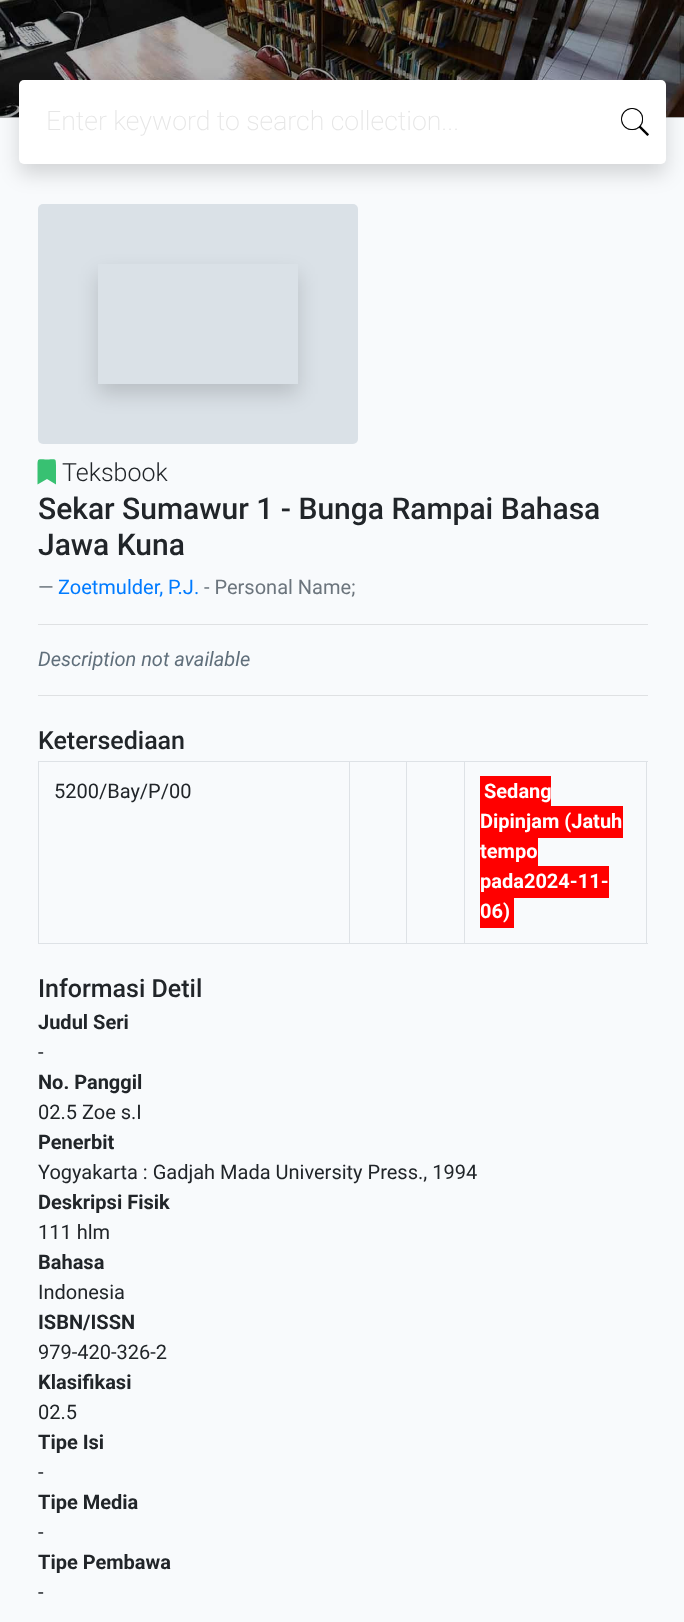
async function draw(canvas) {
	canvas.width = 684;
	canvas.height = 1622;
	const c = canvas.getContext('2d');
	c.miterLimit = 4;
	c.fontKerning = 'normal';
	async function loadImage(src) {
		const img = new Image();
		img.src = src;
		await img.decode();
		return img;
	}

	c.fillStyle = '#f8fafc';
	c.fillRect(0, 0, 684, 1622);
	c.fillStyle = '#aeafb0';
	c.fillRect(0, 117, 684, 1);
	c.drawImage(await loadImage('img1.png'), 0, 116, 684, 1);
	c.drawImage(await loadImage('img2.png'), 0, 0, 684, 117);
	c.fillStyle = '#dae1e7';
	c.beginPath();
	c.roundRect(38, 204, 320, 240, 5);
	c.fill();
	c.fillStyle = '#00000026';
	c.filter = 'blur(10px)';
	c.beginPath();
	c.roundRect(19, 90, 647, 84, 5);
	c.fill();
	c.filter = 'none';
	c.fillStyle = '#fff';
	c.beginPath();
	c.roundRect(19, 80, 647, 84, 5);
	c.fill();
	c.drawImage(await loadImage('img3.png'), 621, 108, 28, 28);
	c.font = '200 26.7px Roboto';
	c.fillStyle = '#e6e6e6';
	c.fillText('Enter keyword to search collection...', 46, 130);
	c.save();
	c.beginPath();
	c.moveTo(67, 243);
	c.lineTo(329, 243);
	c.lineTo(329, 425);
	c.lineTo(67, 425);
	c.closePath();
	c.moveTo(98, 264);
	c.lineTo(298, 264);
	c.lineTo(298, 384);
	c.lineTo(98, 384);
	c.closePath();
	c.clip('evenodd');
	c.fillStyle = '#00000026';
	c.filter = 'blur(10px)';
	c.beginPath();
	c.rect(98, 274, 200, 120);
	c.fill();
	c.filter = 'none';
	c.restore();
	c.fillStyle = '#38c172';
	c.beginPath();
	c.moveTo(37.5, 484.5);
	c.lineTo(37.5, 465.5);
	c.bezierCurveTo(37.5, 457.5, 38.5, 459.5, 47, 459.5);
	c.bezierCurveTo(55.5, 459.5, 56, 457.5, 56, 465.5);
	c.lineTo(56, 484.5);
	c.lineTo(47, 479);
	c.closePath();
	c.fill();
	c.font = '300 25px Roboto';
	c.fillStyle = '#212529';
	c.fillText('Teksbook', 62, 481);
	c.font = '500 30px Roboto';
	c.fillText('Sekar Sumawur 1 - Bunga Rampai Bahasa', 38, 519);
	c.fillText('Jawa Kuna', 38, 555);
	c.font = '20px Roboto';
	c.fillStyle = '#6c757d';
	c.fillText('—', 38, 594);
	c.fillStyle = '#007bff';
	c.fillText('Zoetmulder, P.J.', 58, 594);
	c.fillStyle = '#6c757d';
	c.fillText('- Personal Name;', 204, 594);
	c.fillStyle = '#dfe1e3';
	c.fillRect(38, 624, 610, 1);
	c.font = 'italic 20px Roboto';
	c.fillStyle = '#606f7b';
	c.fillText('Description not available', 38, 666);
	c.fillStyle = '#dfe1e3';
	c.fillRect(38, 695, 610, 1);
	c.font = '500 25px Roboto';
	c.fillStyle = '#212529';
	c.fillText('Ketersediaan', 38, 749);
	for (const [x, y, w, h, color] of [
		[38, 761, 610, 1, '#dee2e6'],
		[646, 761, 1, 183, '#dee2e6'],
		[38, 943, 610, 1, '#dee2e6'],
		[38, 761, 1, 183, '#dee2e6'],
	]) {
		c.fillStyle = color;
		c.fillRect(x, y, w, h);
	}
	c.font = '20px Roboto';
	c.fillStyle = '#212529';
	c.fillText('5200/Bay/P/00', 54, 798);
	for (const [x, y, w, h, color] of [
		[349, 761, 1, 183, '#dee2e6'],
		[406, 761, 1, 183, '#dee2e6'],
		[464, 761, 1, 183, '#dee2e6'],
		[480, 776, 71, 30, '#f00'],
	]) {
		c.fillStyle = color;
		c.fillRect(x, y, w, h);
	}
	c.font = 'bold 20px Roboto';
	c.fillStyle = '#fff';
	c.fillText('Sedang', 484, 798);
	c.fillStyle = '#f00';
	c.fillRect(480, 806, 143, 32);
	c.fillStyle = '#fff';
	c.fillText('Dipinjam (Jatuh', 480, 828);
	c.fillStyle = '#f00';
	c.fillRect(480, 838, 58, 28);
	c.fillStyle = '#fff';
	c.fillText('tempo', 480, 858);
	c.fillStyle = '#f00';
	c.fillRect(480, 866, 129, 32);
	c.fillStyle = '#fff';
	c.fillText('pada2024-11-', 480, 888);
	c.fillStyle = '#f00';
	c.fillRect(480, 898, 34, 30);
	c.fillStyle = '#fff';
	c.fillText('06)', 480, 918);
	c.font = '500 25px Roboto';
	c.fillStyle = '#212529';
	c.fillText('Informasi Detil', 38, 997);
	c.font = 'bold 20px Roboto';
	c.fillText('Judul Seri', 38, 1029);
	c.font = '20px Roboto';
	c.fillText('-', 38, 1059);
	c.font = 'bold 20px Roboto';
	c.fillText('No. Panggil', 38, 1089);
	c.font = '20px Roboto';
	c.fillText('02.5 Zoe s.I', 38, 1119);
	c.font = 'bold 20px Roboto';
	c.fillText('Penerbit', 38, 1149);
	c.font = '20px Roboto';
	c.fillText('Yogyakarta : Gadjah Mada University Press., 1994', 38, 1179);
	c.font = 'bold 20px Roboto';
	c.fillText('Deskripsi Fisik', 38, 1209);
	c.font = '20px Roboto';
	c.fillText('111 hlm', 38, 1239);
	c.font = 'bold 20px Roboto';
	c.fillText('Bahasa', 38, 1269);
	c.font = '20px Roboto';
	c.fillText('Indonesia', 38, 1299);
	c.font = 'bold 20px Roboto';
	c.fillText('ISBN/ISSN', 38, 1329);
	c.font = '20px Roboto';
	c.fillText('979-420-326-2', 38, 1359);
	c.font = 'bold 20px Roboto';
	c.fillText('Klasifikasi', 38, 1389);
	c.font = '20px Roboto';
	c.fillText('02.5', 38, 1419);
	c.font = 'bold 20px Roboto';
	c.fillText('Tipe Isi', 38, 1449);
	c.font = '20px Roboto';
	c.fillText('-', 38, 1479);
	c.font = 'bold 20px Roboto';
	c.fillText('Tipe Media', 38, 1509);
	c.font = '20px Roboto';
	c.fillText('-', 38, 1539);
	c.font = 'bold 20px Roboto';
	c.fillText('Tipe Pembawa', 38, 1569);
	c.font = '20px Roboto';
	c.fillText('-', 38, 1599);
}

draw(document.querySelector('canvas'));
